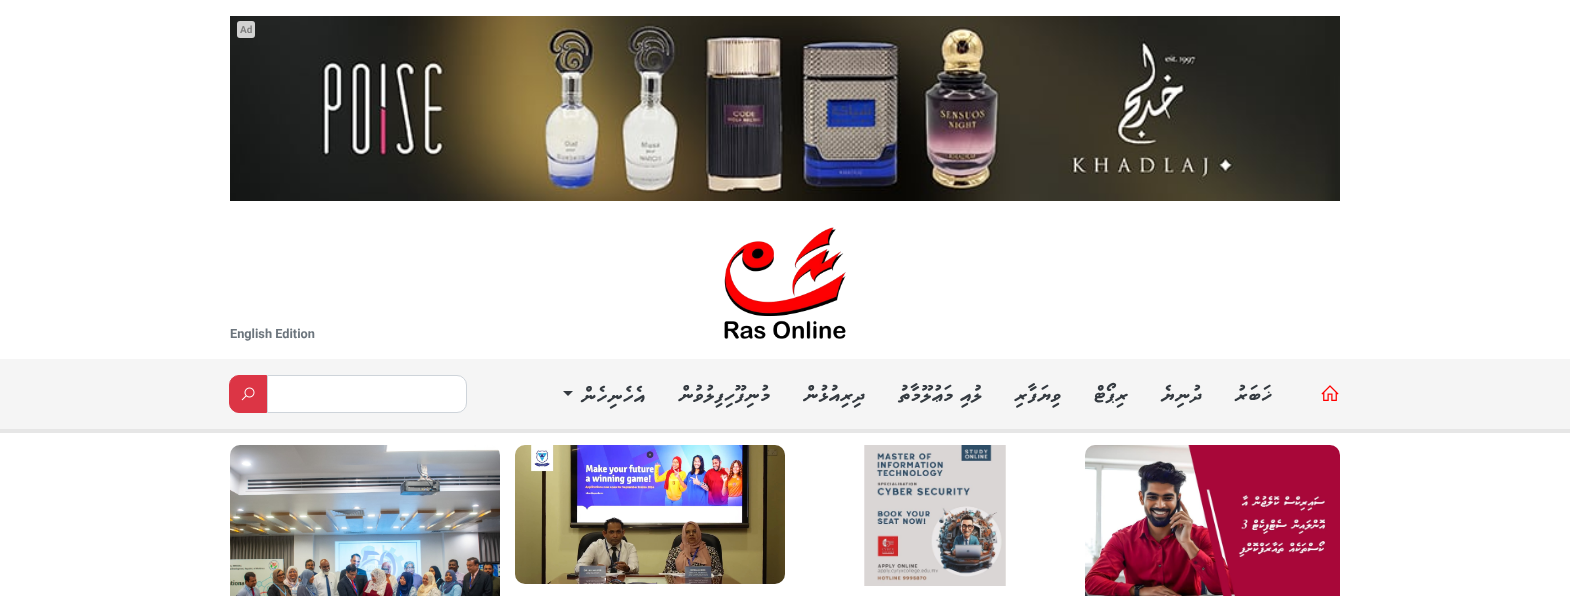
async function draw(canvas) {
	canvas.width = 1570;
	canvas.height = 596;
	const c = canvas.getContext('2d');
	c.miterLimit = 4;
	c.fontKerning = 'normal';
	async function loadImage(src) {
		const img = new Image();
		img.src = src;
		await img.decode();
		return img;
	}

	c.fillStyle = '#fff';
	c.fillRect(0, 0, 1570, 596);
	c.drawImage(await loadImage('img1.png'), 230, 16, 1110, 185);
	c.fillStyle = '#ffffffcc';
	c.beginPath();
	c.roundRect(237, 21, 18, 17, 3);
	c.fill();
	c.font = 'bold 10px Roboto';
	c.fillStyle = '#808080';
	c.fillText('Ad', 240, 33);
	c.drawImage(await loadImage('img2.png'), 724, 227, 122, 112);
	c.font = 'bold 12.75px Roboto';
	c.fillStyle = '#6c757d';
	c.fillText('English Edition', 230, 338);
	c.fillStyle = '#e6e6e6';
	c.fillRect(0, 429, 1570, 4);
	c.fillStyle = '#f5f5f5';
	c.fillRect(0, 359, 1570, 70);
	c.drawImage(await loadImage('img3.png'), 1321, 385, 18, 16);
	c.direction = 'rtl';
	c.font = 'bold 19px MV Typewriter';
	c.fillStyle = '#343a40';
	for (const [text, x, y] of [
		['ޚަބަރު', 1272, 400],
		['ދުނިޔެ', 1202, 400],
		['ރިޕޯޓް', 1128, 400],
		['ވިޔަފާރި', 1061, 400],
		['ލުއި މަޢުލޫމާތު', 982, 400],
		['ދިރިއުޅުން', 865, 400],
		['މުނިފޫހިފިލުވުން', 770, 400],
		['އެހެނިހެން', 645, 401],
	]) {
		c.fillText(text, x, y);
	}
	c.beginPath();
	c.moveTo(563, 391);
	c.lineTo(573, 391);
	c.lineTo(568, 396);
	c.closePath();
	c.fill();
	c.fillStyle = '#fff';
	c.beginPath();
	c.roundRect(267.5, 375.5, 199, 37, [0, 9.5, 9.5, 0]);
	c.fill();
	c.strokeStyle = '#ced4da';
	c.stroke();
	c.fillStyle = '#dc3545';
	c.beginPath();
	c.roundRect(229.5, 375.5, 37, 37, [9.5, 0, 0, 9.5]);
	c.fill();
	c.strokeStyle = '#dc3545';
	c.stroke();
	c.drawImage(await loadImage('img4.png'), 241, 387, 14, 14);
	c.drawImage(await loadImage('img5.png'), 1085, 445, 255, 151);
	c.drawImage(await loadImage('img6.png'), 864, 445, 142, 141);
	c.drawImage(await loadImage('img7.png'), 515, 445, 270, 139);
	c.drawImage(await loadImage('img8.png'), 230, 445, 270, 151);
}

draw(document.querySelector('canvas'));
